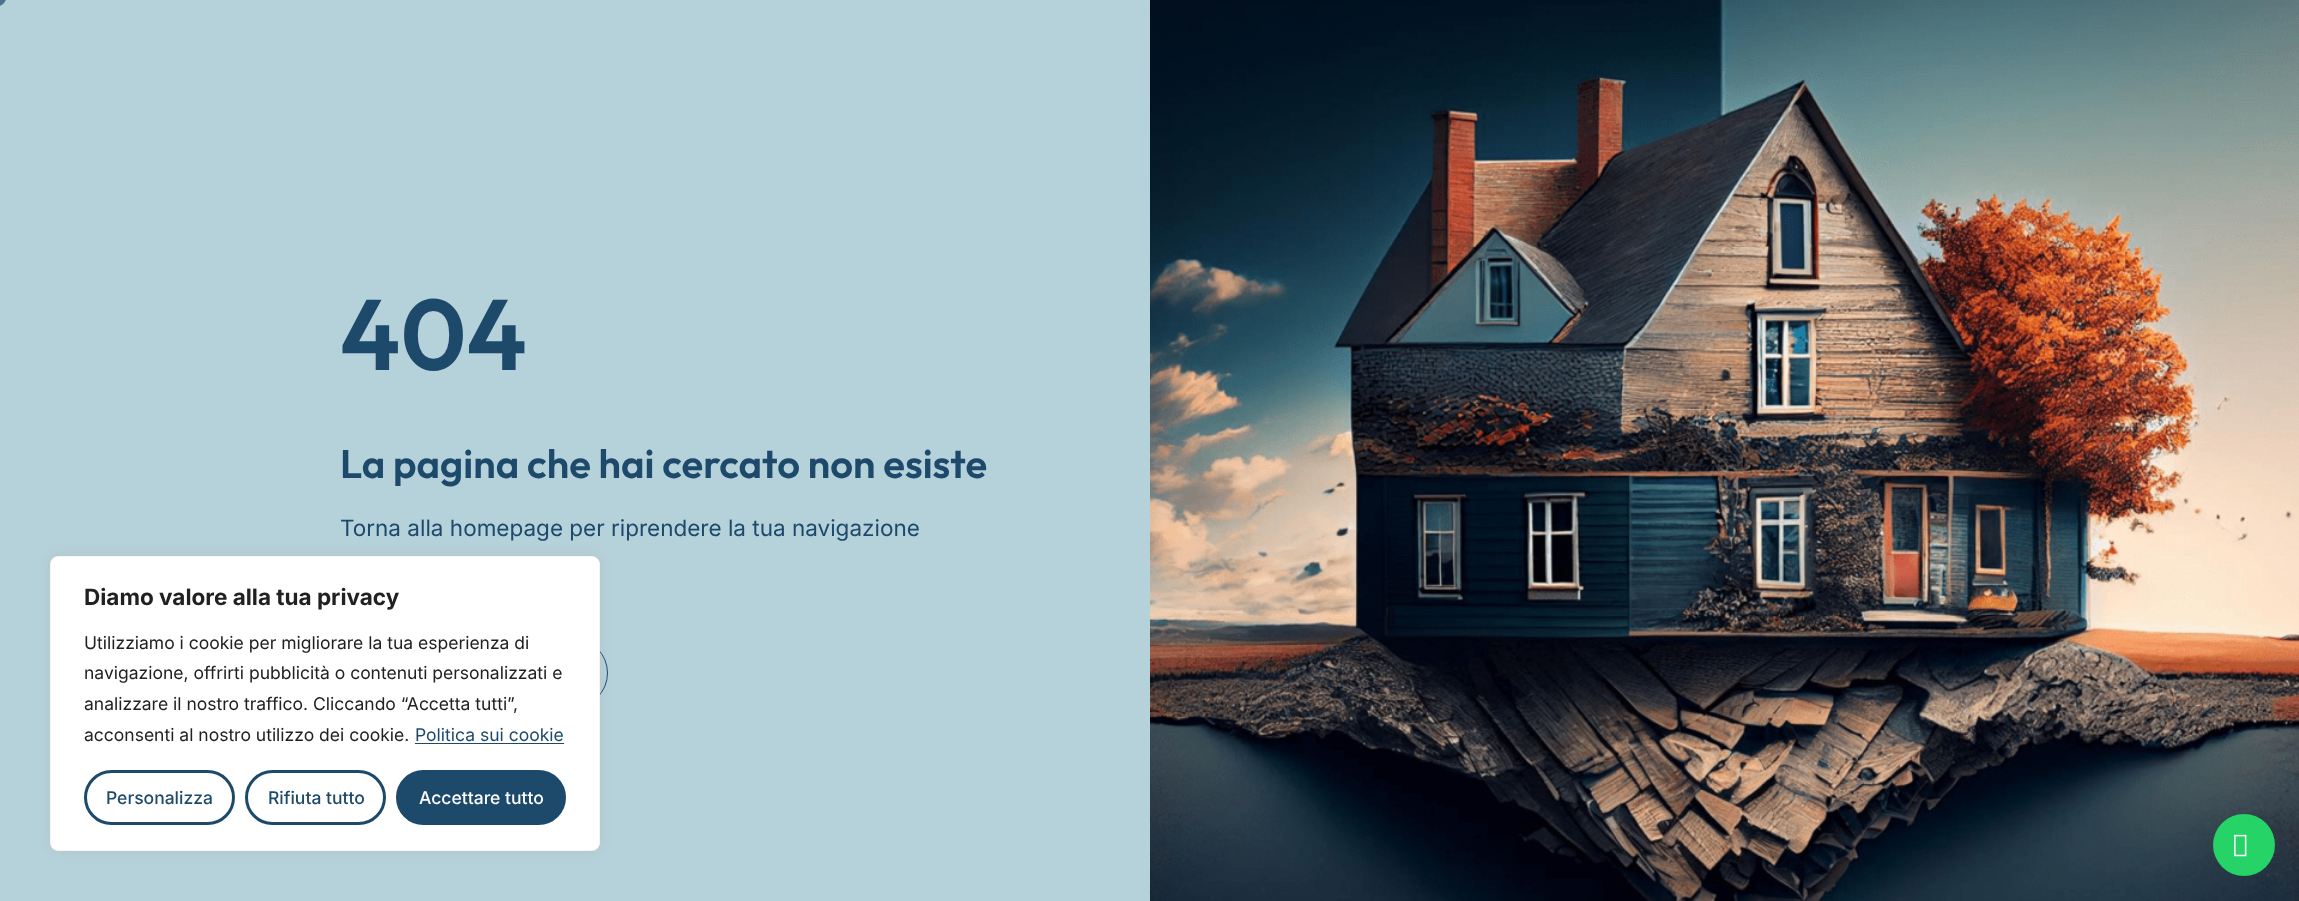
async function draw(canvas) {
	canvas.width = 2299;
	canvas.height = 901;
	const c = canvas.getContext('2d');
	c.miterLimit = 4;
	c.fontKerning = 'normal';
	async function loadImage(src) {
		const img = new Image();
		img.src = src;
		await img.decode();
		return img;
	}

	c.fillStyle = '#b5d1d9';
	c.fillRect(0, 0, 2299, 901);
	c.fillStyle = '#4b728c';
	c.beginPath();
	c.roundRect(-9.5, -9.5, 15, 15, 8.5);
	c.fill();
	c.strokeStyle = '#4b728c';
	c.stroke();
	c.font = '600 100px Outfit';
	c.fillStyle = '#1d496b';
	c.fillText('404', 340, 370);
	c.font = '600 40px Outfit';
	c.fillText('La pagina che hai cercato non esiste', 340, 478);
	c.font = '22.5px Inter';
	c.fillText('Torna alla homepage per riprendere la tua navigazione', 340, 536);
	c.beginPath();
	c.roundRect(340.5, 638.5, 267, 69, 34.5);
	c.strokeStyle = '#1d496b';
	c.stroke();
	c.drawImage(await loadImage('img1.png'), 1150, 0, 1149, 901);
	c.fillStyle = '#acabab4d';
	c.filter = 'blur(6px)';
	c.beginPath();
	c.roundRect(50, 555, 550, 295, 8);
	c.fill();
	c.filter = 'none';
	c.fillStyle = '#fff';
	c.beginPath();
	c.roundRect(50.5, 556.5, 549, 294, 7.5);
	c.fill();
	c.strokeStyle = '#f4f4f4';
	c.stroke();
	c.font = 'bold 22.5px Inter';
	c.fillStyle = '#212121';
	c.fillText('Diamo valore alla tua privacy', 84, 605);
	c.font = '17.5px Inter';
	for (const [text, x, y] of [
		['Utilizziamo i cookie per migliorare la tua esperienza di', 84, 649],
		['navigazione, offrirti pubblicità o contenuti personalizzati e', 84, 679],
		['analizzare il nostro traffico. Cliccando “Accetta tutti”,', 84, 710],
		['acconsenti al nostro utilizzo dei cookie.', 84, 741],
	]) {
		c.fillText(text, x, y);
	}
	c.fillStyle = '#1d496b';
	c.fillText('Politica sui cookie', 415, 741);
	c.fillRect(415, 743, 149, 1);
	c.beginPath();
	c.roundRect(85.5, 771.5, 148, 52, 26);
	c.strokeStyle = '#1d496b';
	c.lineWidth = 3;
	c.stroke();
	c.font = '500 17.5px Inter';
	c.fillText('Personalizza', 106, 804);
	c.beginPath();
	c.roundRect(246.5, 771.5, 138, 52, 26);
	c.stroke();
	c.fillText('Rifiuta tutto', 268, 804);
	c.beginPath();
	c.roundRect(397.5, 771.5, 167, 52, 26);
	c.fill();
	c.stroke();
	c.fillStyle = '#fff';
	c.fillText('Accettare tutto', 419, 804);
	c.fillStyle = '#25d366';
	c.beginPath();
	c.arc(2244, 845, 31, 0, 2 * Math.PI);
	c.fill();
	c.drawImage(await loadImage('img2.png'), 2234, 834, 13, 23);
}

draw(document.querySelector('canvas'));
